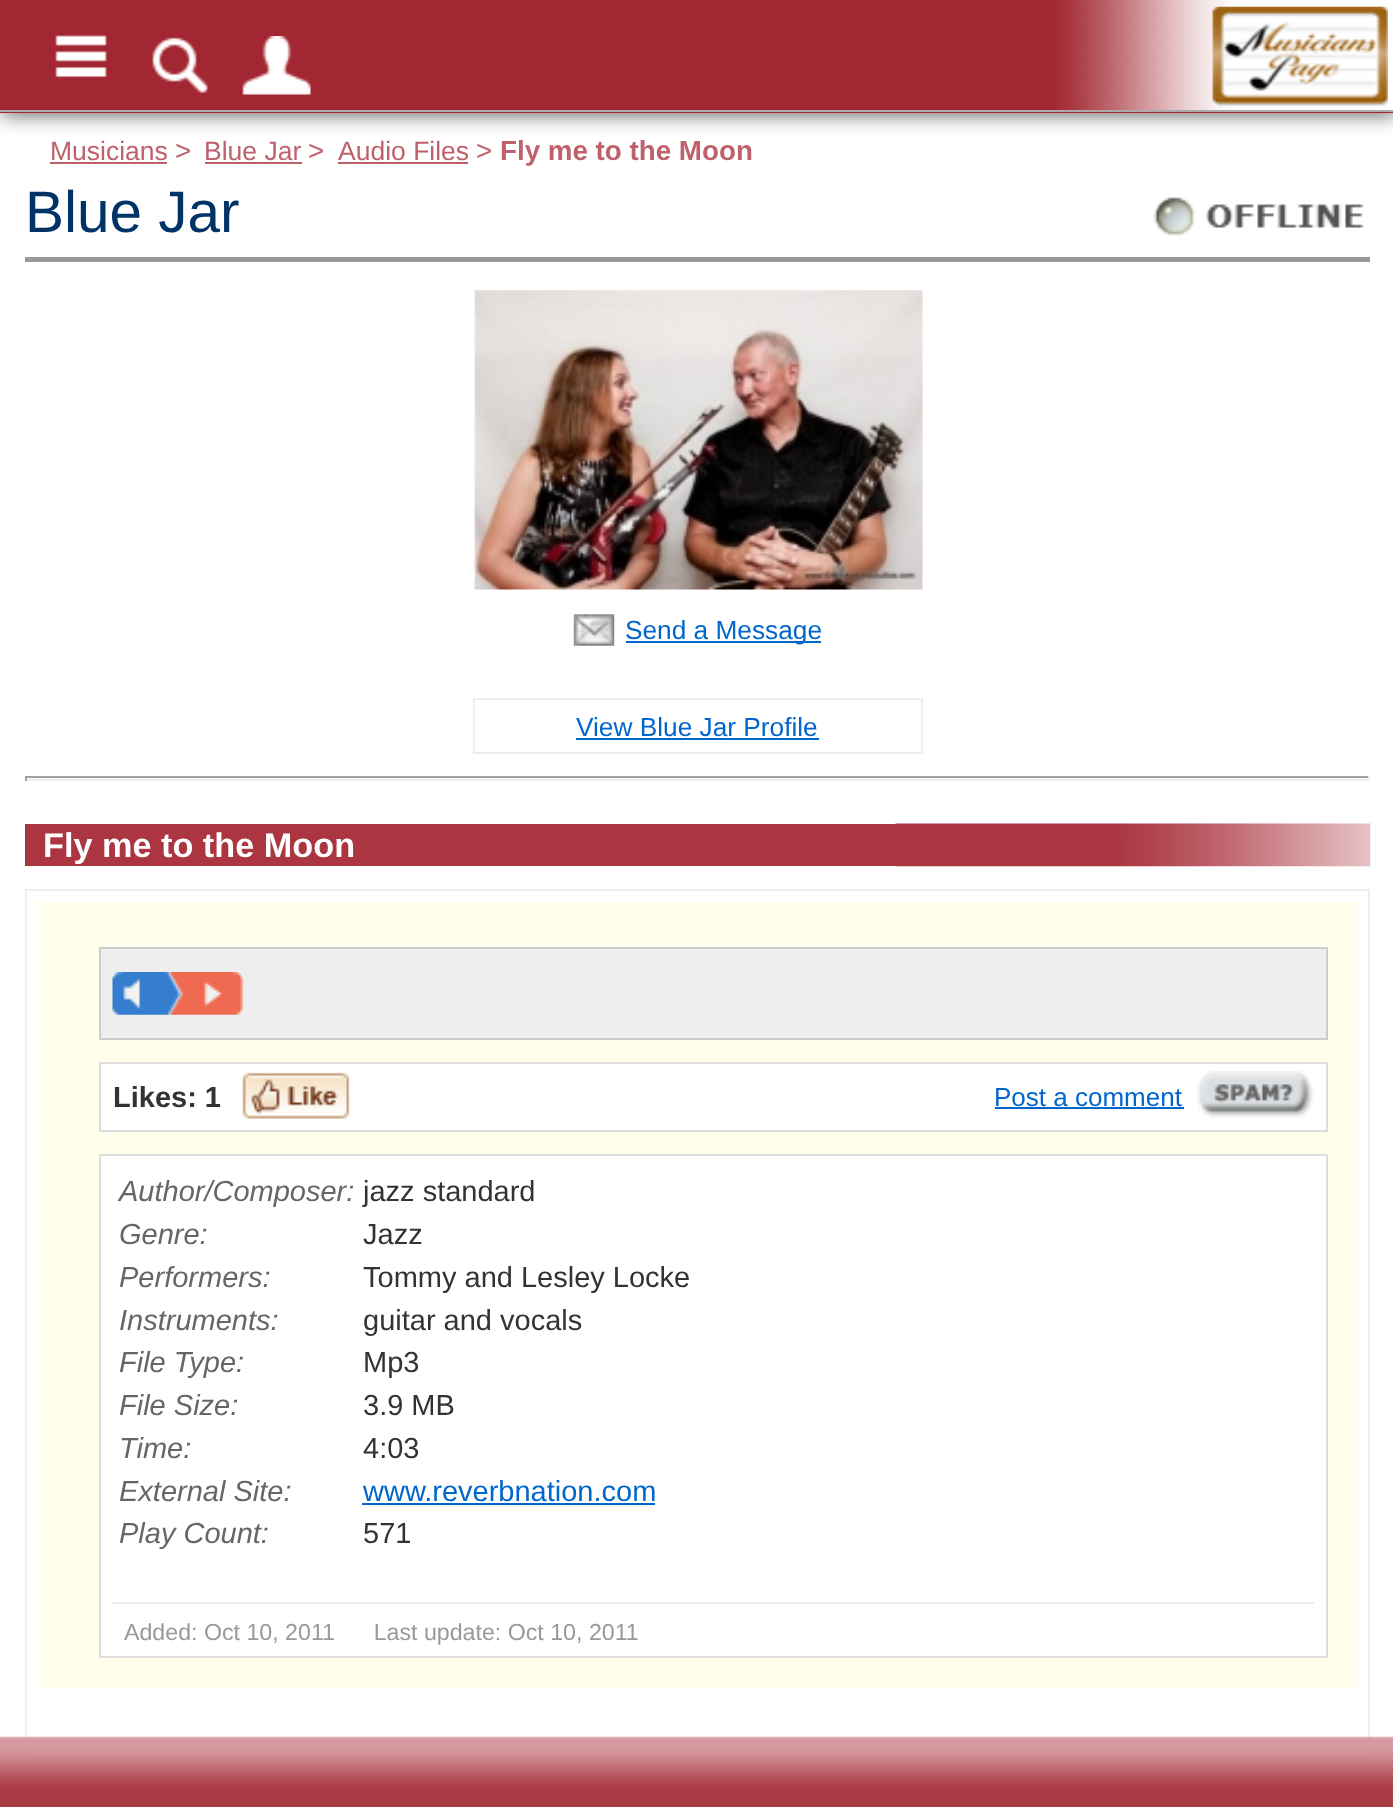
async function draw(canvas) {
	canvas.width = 1393;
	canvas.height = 1807;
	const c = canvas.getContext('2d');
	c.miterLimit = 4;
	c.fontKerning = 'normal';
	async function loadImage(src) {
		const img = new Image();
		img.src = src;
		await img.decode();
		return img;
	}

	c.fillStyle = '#fff';
	c.fillRect(0, 0, 1393, 1807);
	c.fillStyle = '#666';
	c.filter = 'blur(10px)';
	c.beginPath();
	c.rect(2, 2, 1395, 113);
	c.fill();
	c.filter = 'none';
	c.fillStyle = '#a32732';
	c.fillRect(0, 0, 1393, 113);
	c.drawImage(await loadImage('img1.png'), 1056, 0, 337, 110);
	c.fillStyle = '#aaa';
	c.fillRect(0, 110, 1393, 2);
	c.drawImage(await loadImage('img2.png'), 55, 35, 52, 43);
	c.drawImage(await loadImage('img3.png'), 152, 37, 57, 56);
	c.drawImage(await loadImage('img4.png'), 242, 36, 69, 59);
	c.drawImage(await loadImage('img5.png'), 1212, 6, 176, 100);
	c.font = '26.5px Liberation Sans';
	c.fillStyle = '#be616b';
	c.fillText('Musicians', 50, 160);
	c.fillRect(50, 162, 117, 2);
	c.font = '27.75px Liberation Sans';
	c.fillText('>', 175, 160);
	c.font = '26.5px Liberation Sans';
	c.fillText('Blue Jar', 204, 160);
	c.fillRect(205, 162, 97, 2);
	c.font = '27.75px Liberation Sans';
	c.fillText('>', 308, 160);
	c.font = '26.5px Liberation Sans';
	c.fillText('Audio Files', 338, 160);
	c.fillRect(338, 162, 130, 2);
	c.font = '27.75px Liberation Sans';
	c.fillText('>', 476, 160);
	c.font = 'bold 27.75px Liberation Sans';
	c.fillText('Fly me to the Moon', 500, 160);
	c.fillStyle = '#999';
	c.fillRect(25, 257, 1345, 5);
	c.font = '58.5px Liberation Sans';
	c.fillStyle = '#036';
	c.fillText('Blue Jar', 25, 232);
	c.drawImage(await loadImage('img6.png'), 1153, 197, 211, 40);
	c.drawImage(await loadImage('img7.png'), 472, 290, 451, 300);
	c.drawImage(await loadImage('img8.png'), 573, 614, 42, 32);
	c.fillStyle = '#06c';
	c.fillRect(626, 641, 195, 2);
	c.font = '26.25px Liberation Sans';
	c.fillText('Send a Message', 625, 639);
	c.strokeStyle = '#eee';
	c.lineWidth = 2;
	c.strokeRect(474, 699, 448, 54);
	c.fillText('View Blue Jar Profile', 576, 736);
	for (const [x, y, w, h, color] of [
		[576, 738, 243, 2, '#06c'],
		[25, 776, 1345, 2, '#9f9f9f'],
		[1368, 776, 2, 5, '#eee'],
		[25, 779, 1345, 2, '#eee'],
		[25, 776, 2, 5, '#9f9f9f'],
		[25, 824, 871, 42, '#ab3641'],
	]) {
		c.fillStyle = color;
		c.fillRect(x, y, w, h);
	}
	c.drawImage(await loadImage('img9.png'), 895, 823, 476, 44);
	c.font = 'bold 34.25px Liberation Sans';
	c.fillStyle = '#fff';
	c.fillText('Fly me to the Moon', 43, 857);
	c.strokeRect(26, 890, 1343, 869);
	c.fillStyle = '#ffffeb';
	c.fillRect(38, 902, 1319, 786);
	c.fillStyle = '#eee';
	c.beginPath();
	c.rect(100, 948, 1227, 91);
	c.fill();
	c.strokeStyle = '#ccc';
	c.stroke();
	c.drawImage(await loadImage('img10.png'), 112, 972, 131, 43);
	c.fillStyle = '#fff';
	c.beginPath();
	c.rect(100, 1063, 1227, 68);
	c.fill();
	c.strokeStyle = '#ddd';
	c.stroke();
	c.font = 'bold 29px Liberation Sans';
	c.fillStyle = '#333';
	c.fillText('Likes: 1', 113, 1107);
	c.drawImage(await loadImage('img11.png'), 242, 1072, 108, 47);
	c.font = '26px Liberation Sans';
	c.fillStyle = '#06c';
	c.fillText('Post a comment', 994, 1106);
	c.fillRect(995, 1107, 189, 2);
	c.drawImage(await loadImage('img12.png'), 1197, 1071, 117, 47);
	c.fillStyle = '#fff';
	c.beginPath();
	c.rect(100, 1155, 1227, 502);
	c.fill();
	c.stroke();
	c.font = 'italic 29px Liberation Sans';
	c.fillStyle = '#666';
	c.fillText('Author/Composer:', 119, 1201);
	c.font = '29px Liberation Sans';
	c.fillStyle = '#333';
	c.fillText('jazz standard', 363, 1201);
	c.font = 'italic 29px Liberation Sans';
	c.fillStyle = '#666';
	c.fillText('Genre:', 119, 1244);
	c.font = '29px Liberation Sans';
	c.fillStyle = '#333';
	c.fillText('Jazz', 363, 1244);
	c.font = 'italic 29px Liberation Sans';
	c.fillStyle = '#666';
	c.fillText('Performers:', 119, 1287);
	c.font = '29px Liberation Sans';
	c.fillStyle = '#333';
	c.fillText('Tommy and Lesley Locke', 363, 1287);
	c.font = 'italic 29px Liberation Sans';
	c.fillStyle = '#666';
	c.fillText('Instruments:', 119, 1330);
	c.font = '29px Liberation Sans';
	c.fillStyle = '#333';
	c.fillText('guitar and vocals', 363, 1330);
	c.font = 'italic 29px Liberation Sans';
	c.fillStyle = '#666';
	c.fillText('File Type:', 119, 1372);
	c.font = '29px Liberation Sans';
	c.fillStyle = '#333';
	c.fillText('Mp3', 363, 1372);
	c.font = 'italic 29px Liberation Sans';
	c.fillStyle = '#666';
	c.fillText('File Size:', 119, 1415);
	c.font = '29px Liberation Sans';
	c.fillStyle = '#333';
	c.fillText('3.9 MB', 363, 1415);
	c.font = 'italic 29px Liberation Sans';
	c.fillStyle = '#666';
	c.fillText('Time:', 119, 1458);
	c.font = '29px Liberation Sans';
	c.fillStyle = '#333';
	c.fillText('4:03', 363, 1458);
	c.font = 'italic 29px Liberation Sans';
	c.fillStyle = '#666';
	c.fillText('External Site:', 119, 1501);
	c.font = '29px Liberation Sans';
	c.fillStyle = '#06c';
	c.fillText('www.reverbnation.com', 363, 1501);
	c.fillRect(362, 1503, 293, 2);
	c.font = 'italic 29px Liberation Sans';
	c.fillStyle = '#666';
	c.fillText('Play Count:', 119, 1543);
	c.font = '29px Liberation Sans';
	c.fillStyle = '#333';
	c.fillText('571', 363, 1543);
	c.fillStyle = '#eee';
	c.fillRect(113, 1602, 1201, 2);
	c.font = '23.2px Liberation Sans';
	c.fillStyle = '#999';
	c.fillText('Added: Oct 10, 2011      Last update: Oct 10, 2011', 124, 1640);
	c.drawImage(await loadImage('img13.png'), 0, 1736, 1393, 71);
}

draw(document.querySelector('canvas'));
